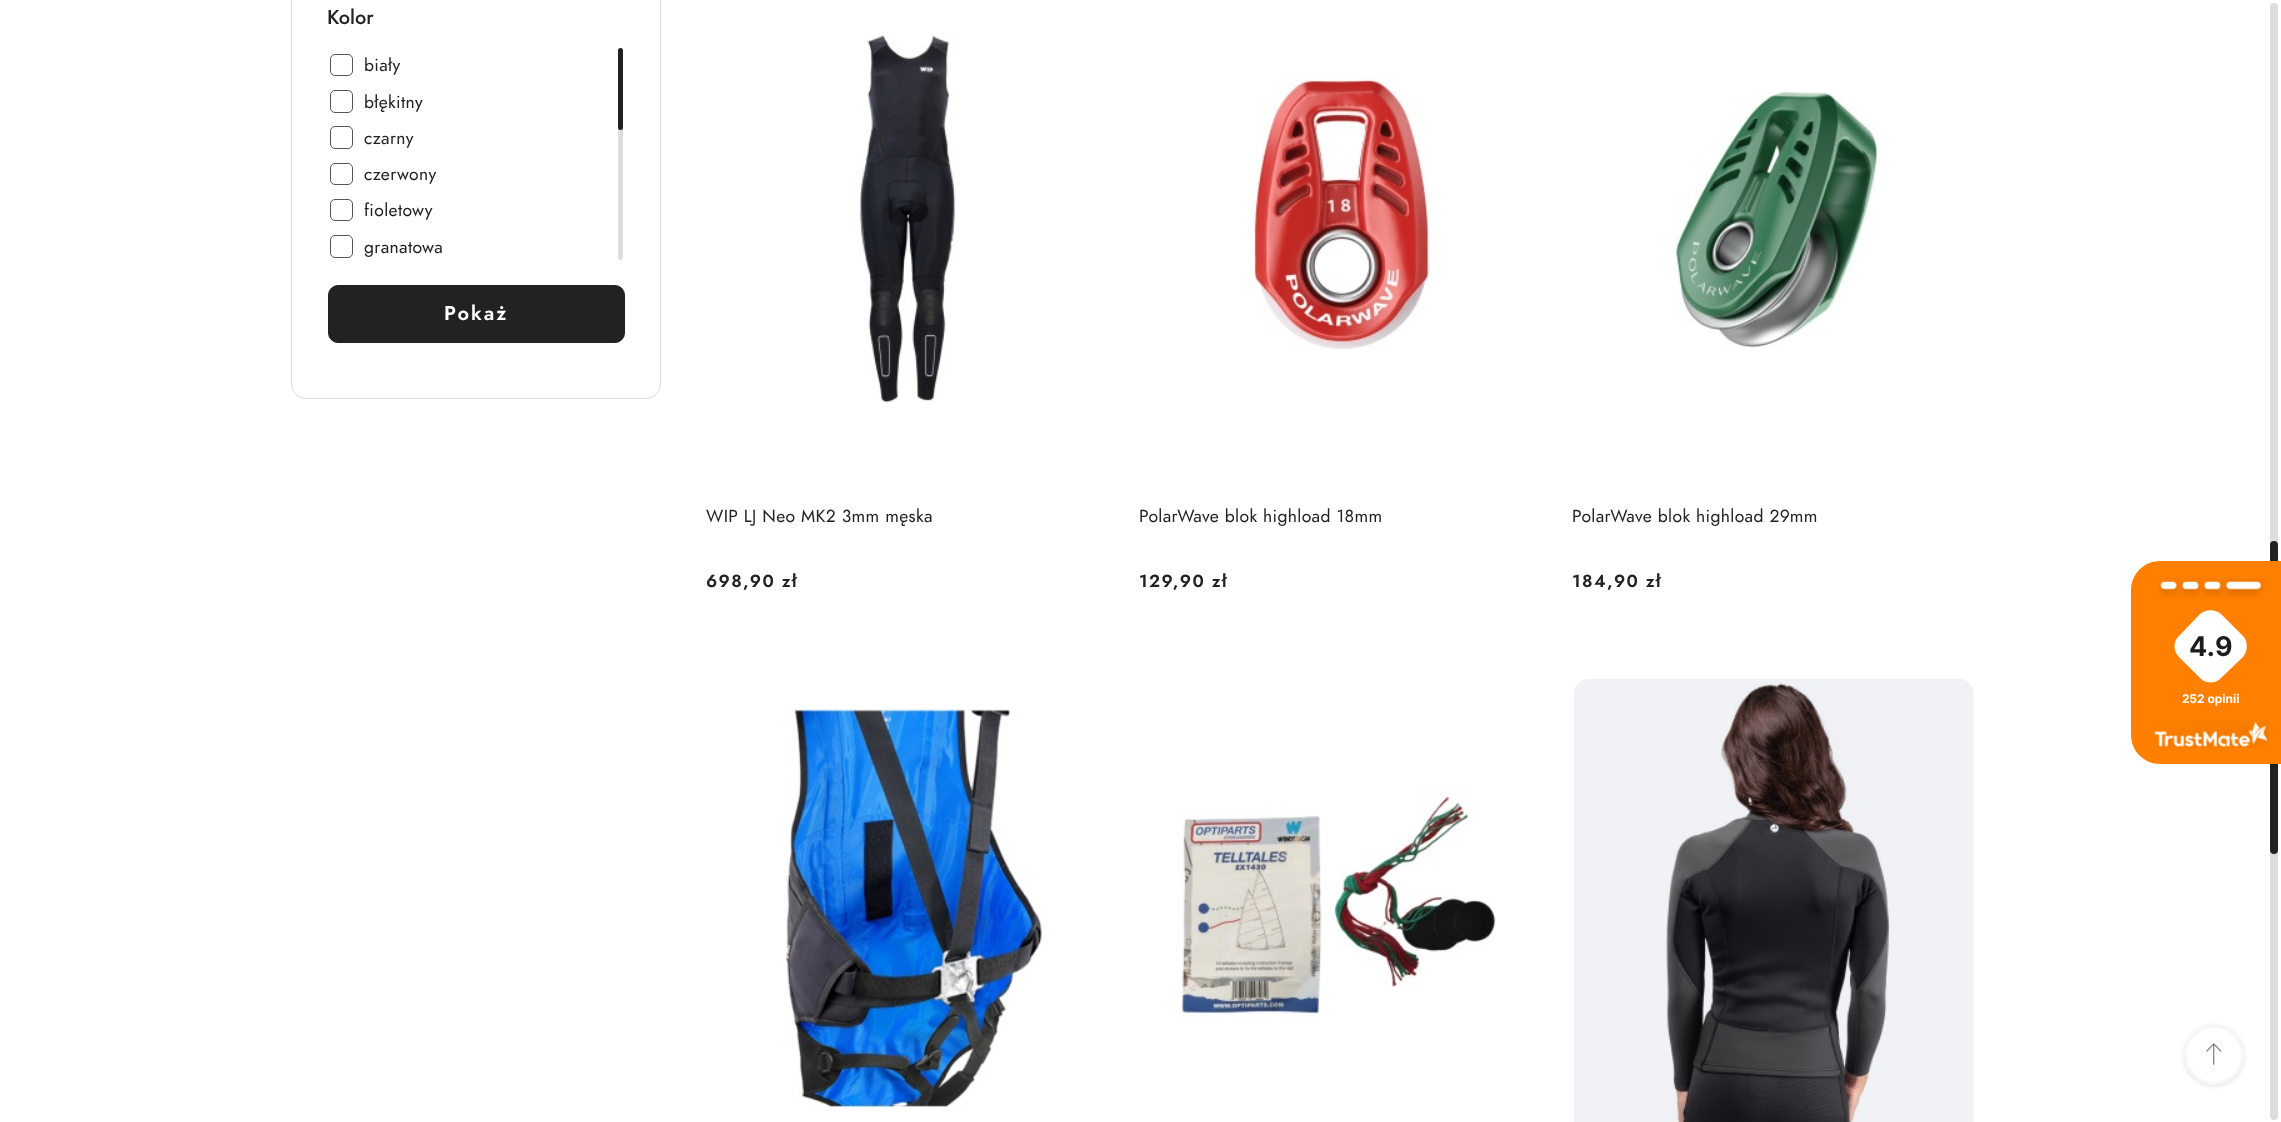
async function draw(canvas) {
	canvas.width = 2281;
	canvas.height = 1122;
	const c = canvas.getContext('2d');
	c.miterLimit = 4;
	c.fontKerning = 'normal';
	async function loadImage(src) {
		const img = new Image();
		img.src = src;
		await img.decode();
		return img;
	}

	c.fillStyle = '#fff';
	c.fillRect(0, 0, 2281, 1122);
	c.beginPath();
	c.roundRect(291.5, -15.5, 369, 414, 14.5);
	c.strokeStyle = '#ddd';
	c.stroke();
	c.font = '500 20px Jost';
	c.fillStyle = '#222';
	c.fillText('Kolor', 327, 24);
	c.beginPath();
	c.roundRect(330.5, 54.5, 22, 21, 4.5);
	c.strokeStyle = '#555';
	c.stroke();
	c.letterSpacing = '0.35px';
	c.font = '17.5px Jost';
	c.fillText('biały', 364, 71);
	c.beginPath();
	c.roundRect(330.5, 90.5, 22, 22, 4.5);
	c.stroke();
	c.fillText('błękitny', 364, 108);
	c.beginPath();
	c.roundRect(330.5, 126.5, 22, 22, 4.5);
	c.stroke();
	c.fillText('czarny', 364, 144);
	c.beginPath();
	c.roundRect(330.5, 163.5, 22, 21, 4.5);
	c.stroke();
	c.fillText('czerwony', 364, 180);
	c.beginPath();
	c.roundRect(330.5, 199.5, 22, 21, 4.5);
	c.stroke();
	c.fillText('fioletowy', 364, 216);
	c.beginPath();
	c.roundRect(330.5, 235.5, 22, 22, 4.5);
	c.stroke();
	c.fillText('granatowa', 364, 253);
	c.fillStyle = '#ddd';
	c.beginPath();
	c.roundRect(618, 48, 5, 212, 2.5);
	c.fill();
	c.fillStyle = '#222';
	c.beginPath();
	c.roundRect(618, 48, 5, 82, 2.5);
	c.fill();
	c.beginPath();
	c.roundRect(328.5, 285.5, 296, 57, 9.5);
	c.fill();
	c.strokeStyle = '#222';
	c.stroke();
	c.letterSpacing = '2px';
	c.font = '600 20px Jost';
	c.fillStyle = '#fff';
	c.fillText('Pokaż', 444, 320);
	c.drawImage(await loadImage('img1.png'), 859, 34, 97, 369);
	c.letterSpacing = '0.35px';
	c.font = '17.5px Jost';
	c.fillStyle = '#222';
	c.fillText('WIP LJ Neo MK2 3mm męska', 706, 522);
	c.letterSpacing = '1.4px';
	c.font = '600 17.5px Jost';
	c.fillText('698,90 zł', 706, 587);
	c.drawImage(await loadImage('img2.png'), 1250, 77, 180, 275);
	c.letterSpacing = '0.35px';
	c.font = '17.5px Jost';
	c.fillText('PolarWave blok highload 18mm', 1139, 522);
	c.letterSpacing = '1.4px';
	c.font = '600 17.5px Jost';
	c.fillText('129,90 zł', 1139, 587);
	c.drawImage(await loadImage('img3.png'), 1675, 90, 204, 258);
	c.letterSpacing = '0.35px';
	c.font = '17.5px Jost';
	c.fillText('PolarWave blok highload 29mm', 1572, 522);
	c.letterSpacing = '1.4px';
	c.font = '600 17.5px Jost';
	c.fillText('184,90 zł', 1572, 587);
	c.drawImage(await loadImage('img4.png'), 784, 708, 261, 400);
	c.drawImage(await loadImage('img5.png'), 1180, 788, 316, 237);
	c.drawImage(await loadImage('img6.png'), 1574, 679, 400, 443);
	c.fillStyle = '#66666633';
	c.filter = 'blur(2px)';
	c.beginPath();
	c.roundRect(2184, 1026, 60, 60, 30);
	c.fill();
	c.filter = 'none';
	c.fillStyle = '#fff';
	c.beginPath();
	c.arc(2214, 1055, 28.5, 0, 2 * Math.PI);
	c.fill();
	c.strokeStyle = '#f7f7f7';
	c.lineWidth = 3;
	c.stroke();
	c.drawImage(await loadImage('img7.png'), 2206, 1043, 16, 22);
	c.fillStyle = '#ddd';
	c.beginPath();
	c.roundRect(2270, 3, 8, 1117, 4);
	c.fill();
	c.fillStyle = '#222';
	c.beginPath();
	c.roundRect(2270, 541, 8, 313, 4);
	c.fill();
	c.fillStyle = '#ff8000';
	c.beginPath();
	c.moveTo(2160, 561);
	c.lineTo(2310, 561);
	c.lineTo(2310, 764);
	c.lineTo(2160, 764);
	c.bezierCurveTo(2144, 764, 2131, 751, 2131, 735);
	c.lineTo(2131, 590);
	c.bezierCurveTo(2131, 574, 2144, 561, 2160, 561);
	c.closePath();
	c.fill();
	c.drawImage(await loadImage('img8.png'), 2158, 578, 106, 21);
	c.fillStyle = '#fff';
	c.beginPath();
	c.moveTo(2221, 614);
	c.lineTo(2243, 636);
	c.bezierCurveTo(2248, 641, 2248, 651, 2243, 657);
	c.lineTo(2221, 678);
	c.bezierCurveTo(2215, 684, 2206, 684, 2200, 678);
	c.lineTo(2179, 657);
	c.bezierCurveTo(2173, 651, 2173, 641, 2179, 636);
	c.lineTo(2200, 614);
	c.bezierCurveTo(2206, 609, 2215, 609, 2221, 614);
	c.closePath();
	c.fill();
	c.letterSpacing = '0px';
	c.font = 'bold 27px Inter';
	c.fillStyle = '#1d1d1b';
	c.fillText('4.9', 2189, 656);
	c.font = 'bold 12px Inter';
	c.fillStyle = '#fff';
	c.fillText('252 opinii', 2182, 703);
	c.drawImage(await loadImage('img9.png'), 2154, 720, 115, 28);
}

draw(document.querySelector('canvas'));
